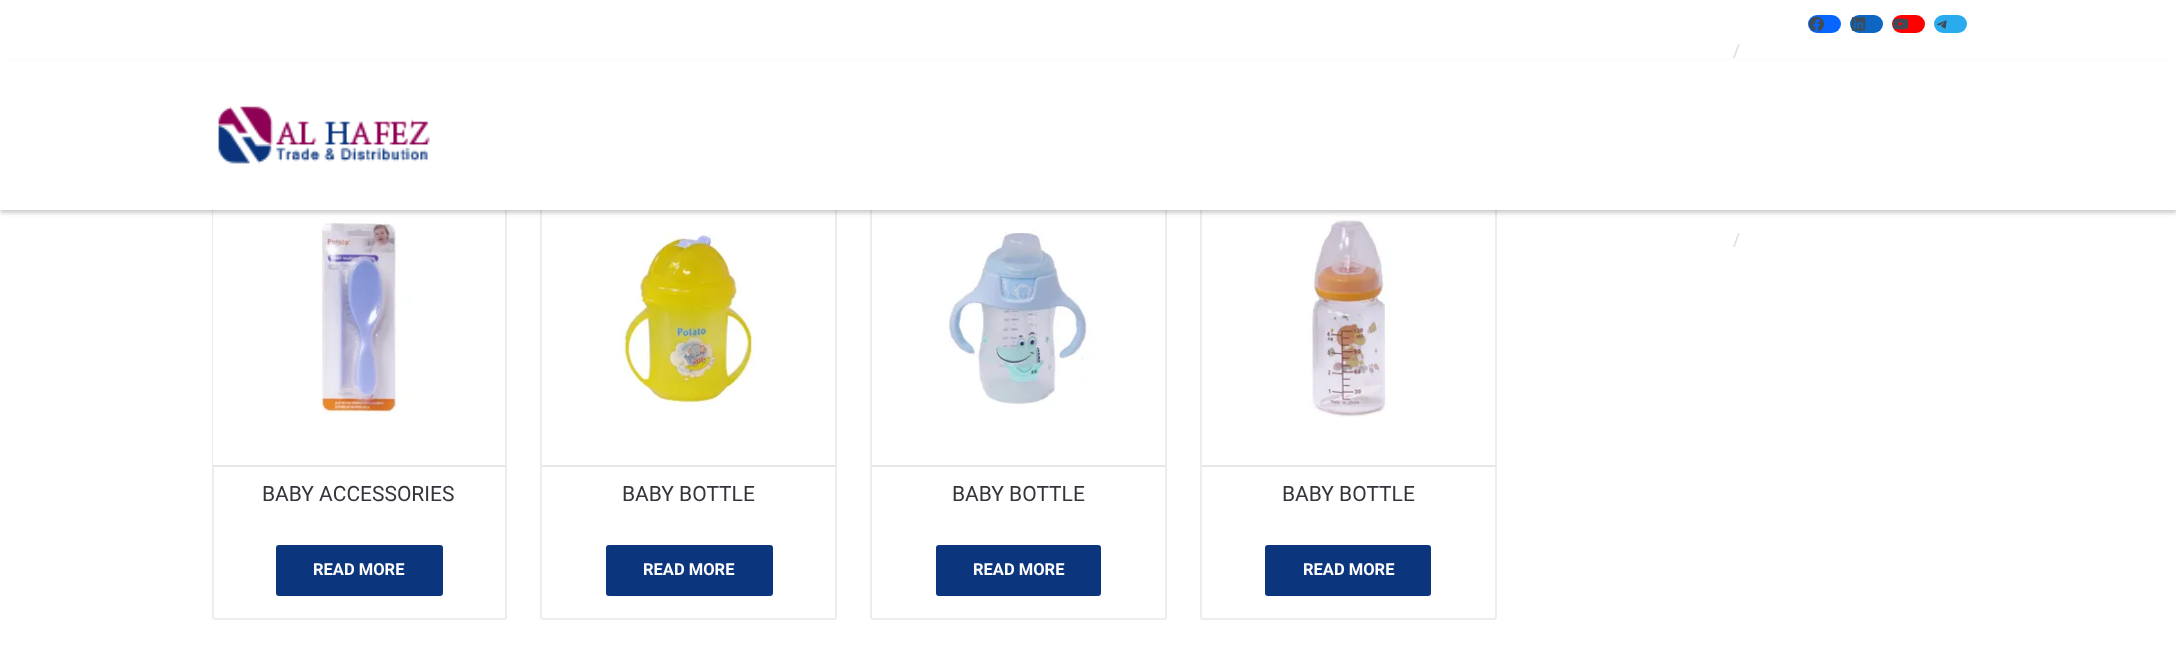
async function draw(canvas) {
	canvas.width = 2176;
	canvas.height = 665;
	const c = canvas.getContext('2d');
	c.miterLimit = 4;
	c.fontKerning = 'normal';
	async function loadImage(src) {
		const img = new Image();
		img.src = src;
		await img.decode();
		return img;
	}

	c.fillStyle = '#fff';
	c.fillRect(0, 0, 2176, 665);
	c.fillStyle = '#0866ff';
	c.beginPath();
	c.roundRect(1808, 15, 33, 18, 9);
	c.fill();
	c.drawImage(await loadImage('img1.png'), 1809, 16, 15, 16);
	c.fillStyle = '#0d66c2';
	c.beginPath();
	c.roundRect(1850, 15, 33, 18, 9);
	c.fill();
	c.drawImage(await loadImage('img2.png'), 1851, 17, 15, 14);
	c.fillStyle = '#f00';
	c.beginPath();
	c.roundRect(1892, 15, 33, 18, 9);
	c.fill();
	c.drawImage(await loadImage('img3.png'), 1893, 18, 15, 12);
	c.fillStyle = '#2aabee';
	c.beginPath();
	c.roundRect(1934, 15, 33, 18, 9);
	c.fill();
	c.drawImage(await loadImage('img4.png'), 1937, 20, 10, 9);
	c.font = '500 18px Roboto';
	c.fillStyle = '#e1e1e1';
	c.fillText('/', 1733, 57);
	c.fillText('/', 1733, 246);
	c.beginPath();
	c.roundRect(213, 172, 293, 447, 2);
	c.strokeStyle = '#ededed';
	c.lineWidth = 2;
	c.stroke();
	c.drawImage(await loadImage('img6.png'), 213, 210, 292, 255);
	c.beginPath();
	c.roundRect(541, 172, 295, 447, 2);
	c.stroke();
	c.drawImage(await loadImage('img7.png'), 542, 210, 293, 197);
	c.beginPath();
	c.roundRect(871, 172, 295, 447, 2);
	c.stroke();
	c.drawImage(await loadImage('img8.png'), 872, 210, 293, 196);
	c.beginPath();
	c.roundRect(1201, 172, 295, 447, 2);
	c.stroke();
	c.drawImage(await loadImage('img9.png'), 1202, 210, 293, 207);
	c.fillStyle = '#00000033';
	c.filter = 'blur(2px)';
	c.beginPath();
	c.rect(0, 63, 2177, 150);
	c.fill();
	c.filter = 'none';
	c.fillStyle = '#fff';
	c.fillRect(0, 60, 2176, 150);
	c.drawImage(await loadImage('img5.png'), 218, 106, 212, 58);
	c.fillStyle = '#e7e7e7';
	c.fillRect(213, 465, 293, 2);
	c.font = '21px Roboto';
	c.fillStyle = '#36353c';
	c.fillText('BABY ACCESSORIES', 262, 501);
	c.fillStyle = '#0b357d';
	c.beginPath();
	c.roundRect(276, 545, 167, 51, 3);
	c.fill();
	c.font = 'bold 16.5px Roboto';
	c.fillStyle = '#fff';
	c.fillText('READ MORE', 313, 575);
	c.fillStyle = '#e7e7e7';
	c.fillRect(542, 465, 294, 2);
	c.font = '21px Roboto';
	c.fillStyle = '#36353c';
	c.fillText('BABY BOTTLE', 622, 501);
	c.fillStyle = '#0b357d';
	c.beginPath();
	c.roundRect(606, 545, 167, 51, 3);
	c.fill();
	c.font = 'bold 16.5px Roboto';
	c.fillStyle = '#fff';
	c.fillText('READ MORE', 643, 575);
	c.fillStyle = '#e7e7e7';
	c.fillRect(872, 465, 294, 2);
	c.font = '21px Roboto';
	c.fillStyle = '#36353c';
	c.fillText('BABY BOTTLE', 952, 501);
	c.fillStyle = '#0b357d';
	c.beginPath();
	c.roundRect(936, 545, 165, 51, 3);
	c.fill();
	c.font = 'bold 16.5px Roboto';
	c.fillStyle = '#fff';
	c.fillText('READ MORE', 973, 575);
	c.fillStyle = '#e7e7e7';
	c.fillRect(1202, 465, 294, 2);
	c.font = '21px Roboto';
	c.fillStyle = '#36353c';
	c.fillText('BABY BOTTLE', 1282, 501);
	c.fillStyle = '#0b357d';
	c.beginPath();
	c.roundRect(1265, 545, 166, 51, 3);
	c.fill();
	c.font = 'bold 16.5px Roboto';
	c.fillStyle = '#fff';
	c.fillText('READ MORE', 1303, 575);
}

draw(document.querySelector('canvas'));
